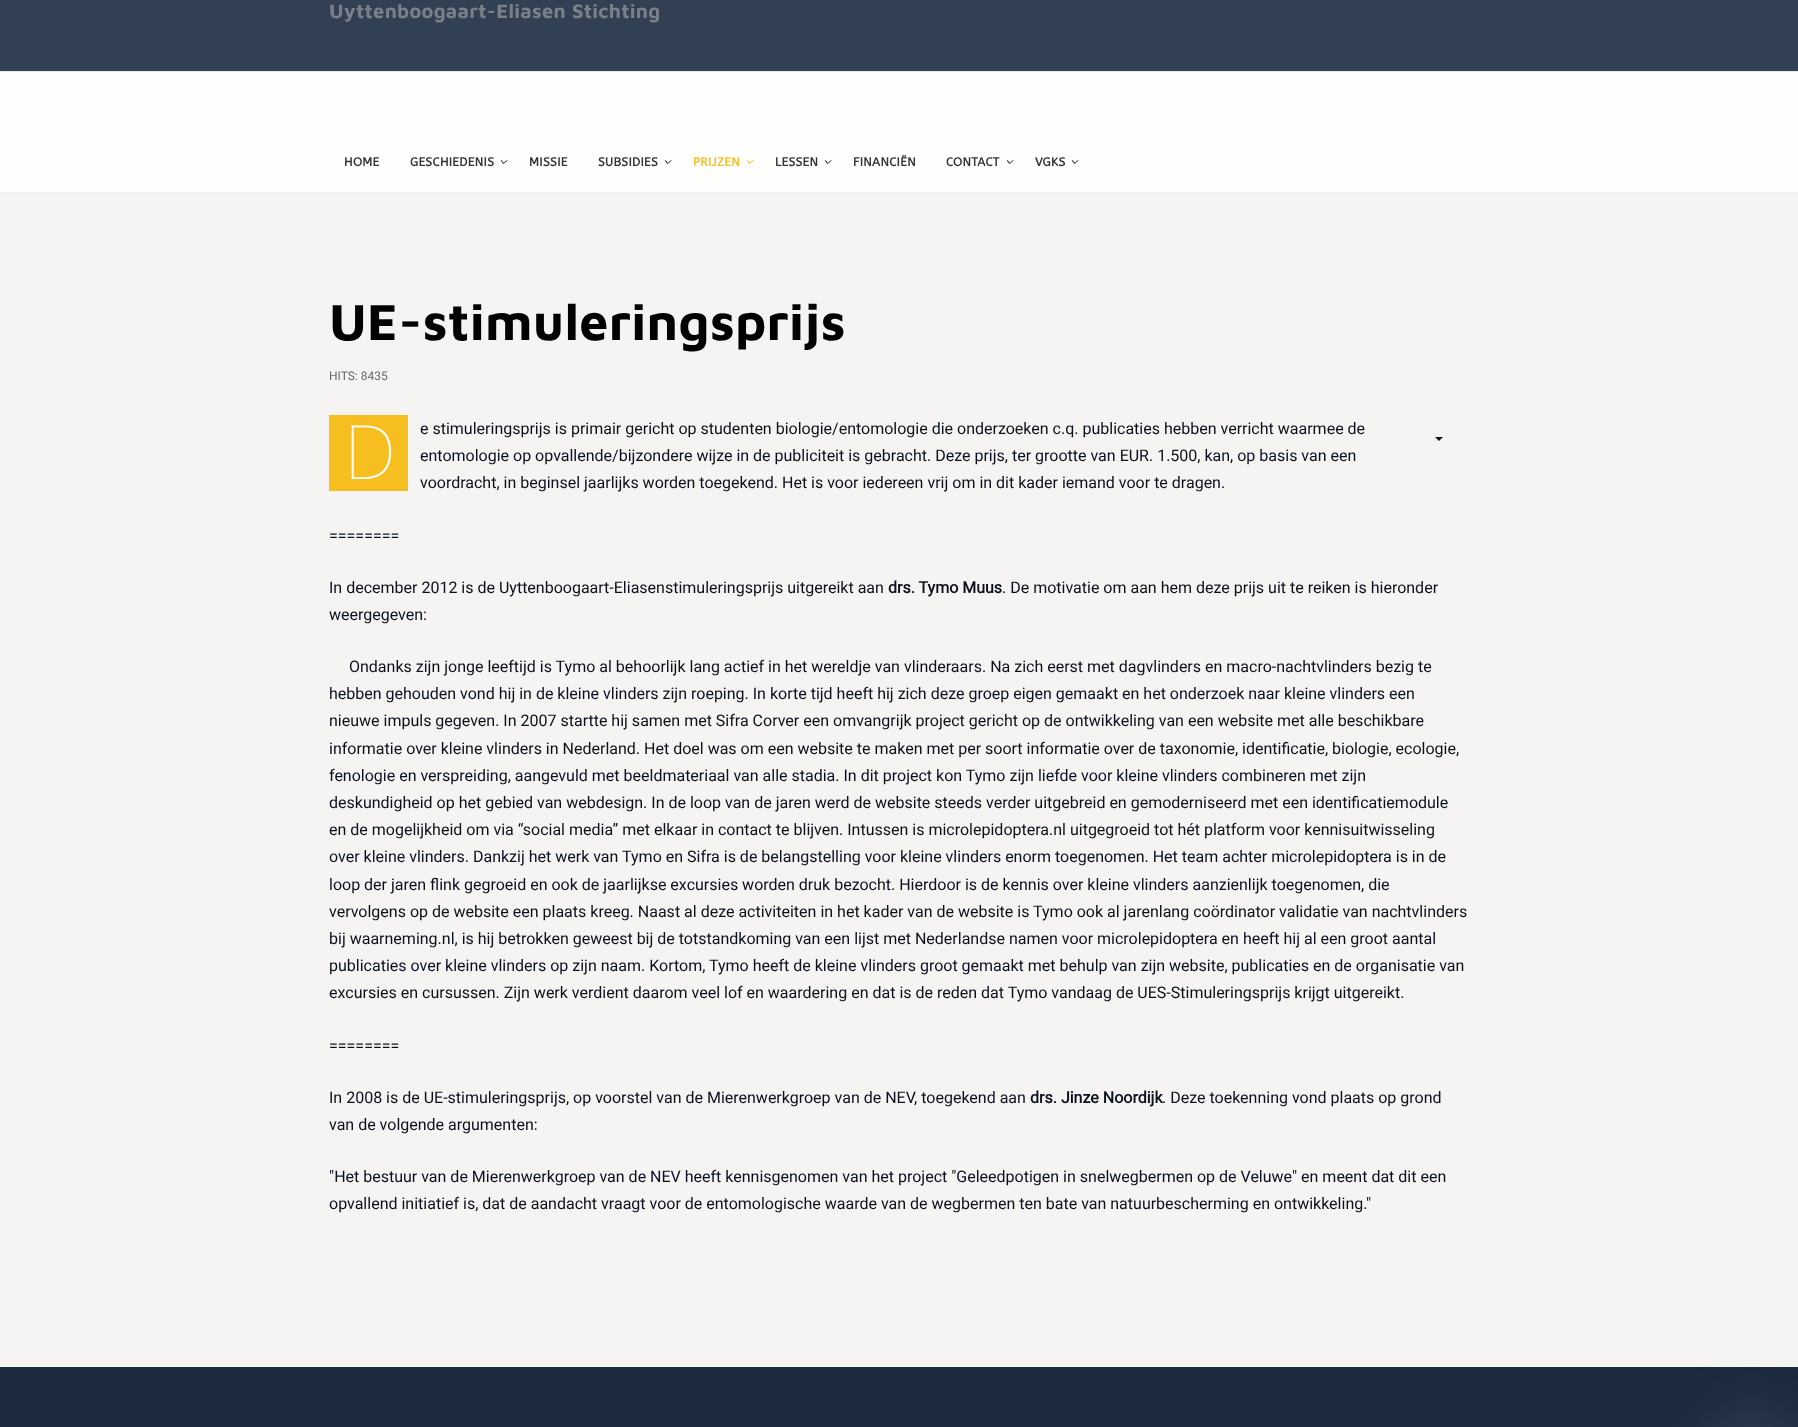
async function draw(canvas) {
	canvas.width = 1798;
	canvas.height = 1427;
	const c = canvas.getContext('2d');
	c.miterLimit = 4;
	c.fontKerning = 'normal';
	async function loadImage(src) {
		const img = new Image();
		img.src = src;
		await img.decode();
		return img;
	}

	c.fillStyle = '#314053';
	c.fillRect(0, 0, 1798, 1427);
	c.fillStyle = '#e7e7e5';
	c.fillRect(0, 71, 1798, 1);
	c.letterSpacing = '0.3px';
	c.font = 'bold 20px Maven Pro';
	c.fillStyle = '#798087';
	c.fillText('Uyttenboogaart-Eliasen Stichting', 329, 18);
	c.fillStyle = '#f5f4f3';
	c.fillRect(0, 192, 1798, 1175);
	c.fillStyle = '#dddddb26';
	c.filter = 'blur(2.5px)';
	c.beginPath();
	c.rect(0, 73, 1798, 120);
	c.fill();
	c.filter = 'none';
	c.fillStyle = '#fffefd';
	c.fillRect(0, 72, 1798, 120);
	c.font = 'bold 12px ABeeZee';
	c.fillStyle = '#353433';
	c.fillText('HOME', 344, 166);
	c.fillText('GESCHIEDENIS', 410, 166);
	c.drawImage(await loadImage('img1.png'), 500, 160, 8, 4);
	c.fillText('MISSIE', 529, 166);
	c.fillText('SUBSIDIES', 598, 166);
	c.drawImage(await loadImage('img1.png'), 664, 160, 8, 4);
	c.fillStyle = '#f6bf1f';
	c.fillText('PRIJZEN', 693, 166);
	c.drawImage(await loadImage('img2.png'), 746, 160, 8, 4);
	c.fillStyle = '#353433';
	c.fillText('LESSEN', 775, 166);
	c.drawImage(await loadImage('img1.png'), 824, 160, 8, 4);
	c.fillText('FINANCIËN', 853, 166);
	c.fillText('CONTACT', 946, 166);
	c.drawImage(await loadImage('img1.png'), 1006, 160, 8, 4);
	c.fillText('VGKS', 1035, 166);
	c.drawImage(await loadImage('img1.png'), 1071, 160, 8, 4);
	c.font = 'bold 52px Maven Pro';
	c.fillStyle = '#020200';
	c.fillText('UE-stimuleringsprijs', 329, 340);
	c.letterSpacing = '0px';
	c.font = '12px Roboto';
	c.fillStyle = '#676765';
	c.fillText('HITS: 8435', 329, 380);
	c.fillStyle = '#f6bf1f';
	c.fillRect(329, 415, 79, 76);
	c.font = '100 75px Noto Sans';
	c.fillStyle = '#fffefd';
	c.fillText('D', 344, 479);
	c.font = '16px Roboto';
	c.fillStyle = '#0b101d';
	for (const [text, x, y] of [
		['e stimuleringsprijs is primair gericht op studenten biologie/entomologie die onderzoeken c.q. publicaties hebben verricht waarmee de', 420, 434],
		['entomologie op opvallende/bijzondere wijze in de publiciteit is gebracht. Deze prijs, ter grootte van EUR. 1.500, kan, op basis van een', 420, 461],
		['voordracht, in beginsel jaarlijks worden toegekend. Het is voor iedereen vrij om in dit kader iemand voor te dragen.', 420, 488],
		['========', 329, 541],
		['In december 2012 is de Uyttenboogaart-Eliasenstimuleringsprijs uitgereikt aan', 329, 593],
	]) {
		c.fillText(text, x, y);
	}
	c.font = 'bold 16px Roboto';
	c.fillText('drs. Tymo Muus', 888, 593);
	c.font = '16px Roboto';
	for (const [text, x, y] of [
		['. De motivatie om aan hem deze prijs uit te reiken is hieronder', 1002, 593],
		['weergegeven:', 329, 620],
		['Ondanks zijn jonge leeftijd is Tymo al behoorlijk lang actief in het wereldje van vlinderaars. Na zich eerst met dagvlinders en macro-nachtvlinders bezig te', 349, 672],
		['hebben gehouden vond hij in de kleine vlinders zijn roeping. In korte tijd heeft hij zich deze groep eigen gemaakt en het onderzoek naar kleine vlinders een', 329, 699],
		['nieuwe impuls gegeven. In 2007 startte hij samen met Sifra Corver een omvangrijk project gericht op de ontwikkeling van een website met alle beschikbare', 329, 726],
		['informatie over kleine vlinders in Nederland. Het doel was om een website te maken met per soort informatie over de taxonomie, identificatie, biologie, ecologie,', 329, 754],
		['fenologie en verspreiding, aangevuld met beeldmateriaal van alle stadia. In dit project kon Tymo zijn liefde voor kleine vlinders combineren met zijn', 329, 781],
		['deskundigheid op het gebied van webdesign. In de loop van de jaren werd de website steeds verder uitgebreid en gemoderniseerd met een identificatiemodule', 329, 808],
		['en de mogelijkheid om via “social media” met elkaar in contact te blijven. Intussen is microlepidoptera.nl uitgegroeid tot hét platform voor kennisuitwisseling', 329, 835],
		['over kleine vlinders. Dankzij het werk van Tymo en Sifra is de belangstelling voor kleine vlinders enorm toegenomen. Het team achter microlepidoptera is in de', 329, 862],
		['loop der jaren flink gegroeid en ook de jaarlijkse excursies worden druk bezocht. Hierdoor is de kennis over kleine vlinders aanzienlijk toegenomen, die', 329, 890],
		['vervolgens op de website een plaats kreeg. Naast al deze activiteiten in het kader van de website is Tymo ook al jarenlang coördinator validatie van nachtvlinders', 329, 917],
		['bij waarneming.nl, is hij betrokken geweest bij de totstandkoming van een lijst met Nederlandse namen voor microlepidoptera en heeft hij al een groot aantal', 329, 944],
		['publicaties over kleine vlinders op zijn naam. Kortom, Tymo heeft de kleine vlinders groot gemaakt met behulp van zijn website, publicaties en de organisatie van', 329, 971],
		['excursies en cursussen. Zijn werk verdient daarom veel lof en waardering en dat is de reden dat Tymo vandaag de UES-Stimuleringsprijs krijgt uitgereikt.', 329, 998],
		['========', 329, 1051],
		['In 2008 is de UE-stimuleringsprijs, op voorstel van de Mierenwerkgroep van de NEV, toegekend aan', 329, 1103],
	]) {
		c.fillText(text, x, y);
	}
	c.font = 'bold 16px Roboto';
	c.fillText('drs. Jinze Noordijk', 1030, 1103);
	c.font = '16px Roboto';
	for (const [text, x, y] of [
		['. Deze toekenning vond plaats op grond', 1162, 1103],
		['van de volgende argumenten:', 329, 1130],
		['"Het bestuur van de Mierenwerkgroep van de NEV heeft kennisgenomen van het project "Geleedpotigen in snelwegbermen op de Veluwe" en meent dat dit een', 329, 1182],
		['opvallend initiatief is, dat de aandacht vraagt voor de entomologische waarde van de wegbermen ten bate van natuurbescherming en ontwikkeling."', 329, 1209],
	]) {
		c.fillText(text, x, y);
	}
	c.beginPath();
	c.moveTo(1435, 437);
	c.lineTo(1443, 437);
	c.lineTo(1439, 441);
	c.closePath();
	c.fill();
	c.fillStyle = '#1b2a3f';
	c.fillRect(0, 1367, 1798, 60);
	c.fillStyle = '#aaaeb4a8';
	c.filter = 'blur(38px)';
	c.beginPath();
	c.roundRect(1728, 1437, 50, 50, 25);
	c.fill();
	c.filter = 'none';
}

draw(document.querySelector('canvas'));
